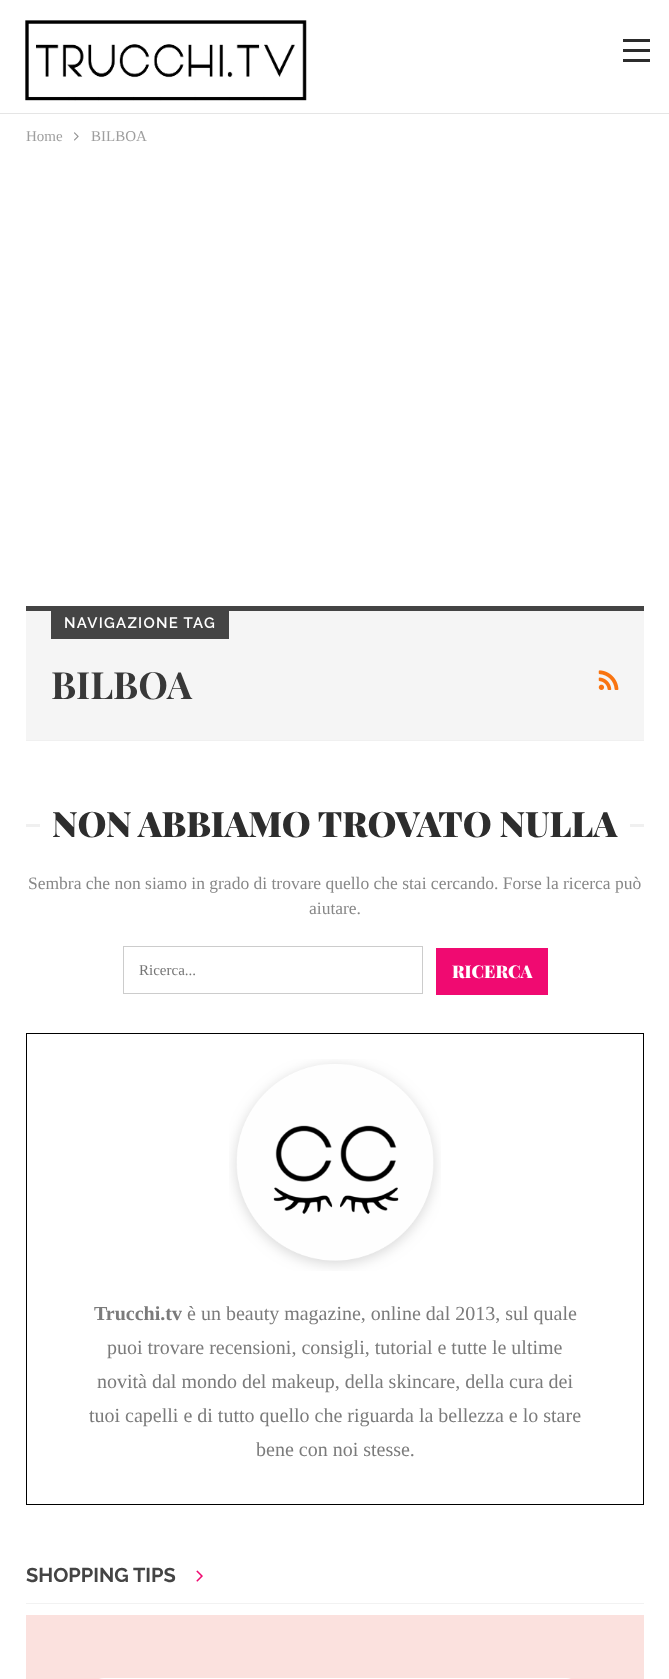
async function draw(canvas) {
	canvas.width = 669;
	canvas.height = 1679;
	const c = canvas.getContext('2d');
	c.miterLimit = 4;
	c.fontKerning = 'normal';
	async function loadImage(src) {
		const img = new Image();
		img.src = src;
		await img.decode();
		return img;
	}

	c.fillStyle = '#fff';
	c.fillRect(0, 0, 669, 1679);
	c.fillStyle = '#e5e5e5';
	c.fillRect(0, 113, 669, 1);
	c.drawImage(await loadImage('img1.png'), 25, 20, 282, 81);
	for (const [x, y, w, h, color] of [
		[623, 49, 27, 3, '#2c2c2c'],
		[623, 39, 27, 3, '#2c2c2c'],
		[623, 59, 27, 3, '#2c2c2c'],
	]) {
		c.fillStyle = color;
		c.fillRect(x, y, w, h);
	}
	c.font = '15px Liberation Serif';
	c.fillStyle = '#9e9e9e';
	c.fillText('Home', 26, 141);
	c.drawImage(await loadImage('img2.png'), 74, 132, 5, 9);
	c.fillText('BILBOA', 91, 141);
	for (const [x, y, w, h, color] of [
		[26, 611, 618, 129, '#f5f5f5'],
		[26, 740, 618, 1, '#f0f0f0'],
		[26, 606, 618, 5, '#444'],
		[51, 611, 178, 28, '#444'],
	]) {
		c.fillStyle = color;
		c.fillRect(x, y, w, h);
	}
	c.letterSpacing = '1.25px';
	c.font = '600 15px Raleway';
	c.fillStyle = '#fff';
	c.fillText('NAVIGAZIONE TAG', 64, 628);
	c.letterSpacing = '0px';
	c.font = 'bold 37.5px Playfair Display';
	c.fillStyle = '#383838';
	c.fillText('BILBOA', 51, 699);
	c.drawImage(await loadImage('img3.png'), 598, 670, 21, 20);
	c.fillStyle = '#f0f0f0';
	c.fillRect(26, 824, 618, 3);
	c.fillStyle = '#fff';
	c.fillRect(40, 824, 590, 3);
	c.font = '900 35px Playfair Display';
	c.fillStyle = '#2d2d2d';
	c.fillText('NON ABBIAMO TROVATO NULLA', 52, 837);
	c.font = '17.5px Liberation Serif';
	c.fillStyle = '#888';
	c.fillText('Sembra che non siamo in grado di trovare quello che stai cercando. Forse la ricerca può', 28, 889);
	c.fillText('aiutare.', 309, 914);
	c.strokeStyle = '#ccc';
	c.strokeRect(123.5, 946.5, 299, 47);
	c.font = '15px Liberation Serif';
	c.fillStyle = '#757575';
	c.fillText('Ricerca...', 139, 975);
	c.fillStyle = '#f00a71';
	c.fillRect(436, 948, 112, 47);
	c.font = '900 17.5px Playfair Display';
	c.fillStyle = '#fff';
	c.fillText('RICERCA', 452, 978);
	c.strokeStyle = '#000';
	c.strokeRect(26.5, 1033.5, 617, 471);
	c.drawImage(await loadImage('img4.png'), 229, 1059, 212, 212);
	c.font = 'bold 20px Liberation Serif';
	c.fillStyle = '#7b7b7b';
	c.fillText('Trucchi.tv', 94, 1320);
	c.font = '20px Liberation Serif';
	for (const [text, x, y] of [
		['è un beauty magazine, online dal 2013, sul quale', 187, 1320],
		['puoi trovare recensioni, consigli, tutorial e tutte le ultime', 107, 1354],
		['novità dal mondo del makeup, della skincare, della cura dei', 97, 1388],
		['tuoi capelli e di tutto quello che riguarda la bellezza e lo stare', 89, 1422],
		['bene con noi stesse.', 256, 1456],
	]) {
		c.fillText(text, x, y);
	}
	c.font = 'bold 20px Raleway';
	c.fillStyle = '#444';
	c.fillText('SHOPPING TIPS', 26, 1582);
	c.drawImage(await loadImage('img5.png'), 196, 1570, 7, 12);
	c.fillStyle = '#f2f2f2';
	c.fillRect(26, 1603, 618, 1);
	c.fillStyle = '#fbe1de';
	c.fillRect(26, 1615, 618, 64);
	c.fillStyle = '#fff';
	c.beginPath();
	c.roundRect(91, 1678, 488, 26, 25);
	c.fill();
}

draw(document.querySelector('canvas'));
